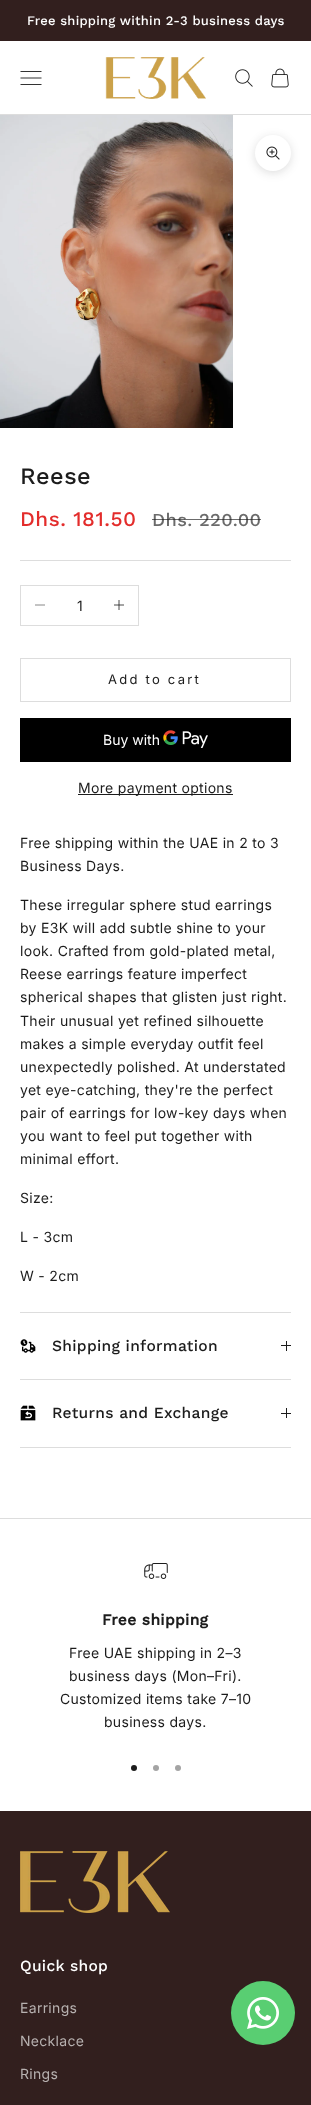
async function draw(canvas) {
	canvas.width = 311;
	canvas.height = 2105;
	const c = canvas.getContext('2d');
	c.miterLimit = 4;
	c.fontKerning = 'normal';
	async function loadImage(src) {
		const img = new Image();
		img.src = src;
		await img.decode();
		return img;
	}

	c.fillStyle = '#fff';
	c.fillRect(0, 0, 311, 2105);
	c.fillStyle = '#321f1e';
	c.fillRect(0, 0, 311, 41);
	c.letterSpacing = '0.25px';
	c.font = '500 13px Work Sans';
	c.fillStyle = '#fff';
	c.fillText('Free shipping within 2-3 business days', 27, 25);
	c.fillStyle = '#ddd';
	c.fillRect(0, 114, 311, 1);
	c.beginPath();
	c.moveTo(21, 84.5);
	c.lineTo(41, 84.5);
	c.moveTo(21, 78);
	c.lineTo(41, 78);
	c.moveTo(21, 71.5);
	c.lineTo(41, 71.5);
	c.strokeStyle = '#1c1c1c';
	c.lineWidth = 0.9;
	c.lineCap = 'square';
	c.stroke();
	c.drawImage(await loadImage('img1.png'), 105, 57, 101, 42);
	c.drawImage(await loadImage('img2.png'), 235, 69, 18, 18);
	c.drawImage(await loadImage('img3.png'), 271, 68, 18, 20);
	c.drawImage(await loadImage('img4.png'), 0, 115, 233, 313);
	c.fillStyle = '#1c1c1c26';
	c.filter = 'blur(5px)';
	c.beginPath();
	c.roundRect(255, 137, 36, 36, 18);
	c.fill();
	c.filter = 'none';
	c.fillStyle = '#fff';
	c.beginPath();
	c.arc(273, 153, 18, 0, 2 * Math.PI);
	c.fill();
	c.drawImage(await loadImage('img5.png'), 266, 146, 14, 14);
	c.letterSpacing = '0.5px';
	c.font = '500 23.5px Work Sans';
	c.fillStyle = '#1c1c1c';
	c.fillText('Reese', 20, 484);
	c.font = '500 20.75px Work Sans';
	c.fillStyle = '#e32c2b';
	c.fillText('Dhs. 181.50', 20, 526);
	c.letterSpacing = '0.4px';
	c.font = '500 18.25px Work Sans';
	c.fillStyle = '#6b6b6b';
	c.fillText('Dhs. 220.00', 152, 526);
	c.fillStyle = '#1c1c1ca6';
	c.fillRect(152, 519, 109, 1);
	c.fillStyle = '#ddd';
	c.fillRect(20, 560, 271, 1);
	c.strokeStyle = '#ddd';
	c.lineWidth = 1;
	c.strokeRect(20.5, 585.5, 118, 40);
	c.beginPath();
	c.moveTo(35, 605);
	c.lineTo(45, 605);
	c.strokeStyle = '#6b6b6b';
	c.lineWidth = 0.8;
	c.lineCap = 'butt';
	c.stroke();
	c.letterSpacing = '0px';
	c.font = '14px Inter';
	c.fillStyle = '#1c1c1c';
	c.fillText('1', 77, 611);
	c.beginPath();
	c.moveTo(119, 600);
	c.lineTo(119, 610);
	c.moveTo(114, 605);
	c.lineTo(124, 605);
	c.strokeStyle = '#1c1c1c';
	c.stroke();
	c.strokeStyle = '#ddd';
	c.lineWidth = 1;
	c.strokeRect(20.5, 658.5, 270, 43);
	c.letterSpacing = '2.25px';
	c.font = '13px Inter';
	c.fillText('Add to cart', 108, 684);
	c.fillStyle = '#000';
	c.fillRect(20, 718, 271, 44);
	c.letterSpacing = '0px';
	c.font = '14px Inter';
	c.fillStyle = '#fff';
	c.fillText('Buy with', 103, 745);
	c.drawImage(await loadImage('img6.png'), 163, 730, 45, 18);
	c.fillStyle = '#1c1c1c';
	c.fillRect(78, 794, 155, 1);
	c.letterSpacing = '0.3px';
	for (const [text, x, y] of [
		['More payment options', 78, 793],
		['Free shipping within the UAE in 2 to 3', 20, 848],
		['Business Days.', 20, 871],
		['These irregular sphere stud earrings', 20, 910],
		['by E3K will add subtle shine to your', 20, 933],
		['look. Crafted from gold-plated metal,', 20, 956],
		['Reese earrings feature imperfect', 20, 979],
		['spherical shapes that glisten just right.', 20, 1002],
		['Their unusual yet refined silhouette', 20, 1026],
		['makes a simple everyday outfit feel', 20, 1049],
		['unexpectedly polished. At understated', 20, 1072],
		['yet eye-catching, they\'re the perfect', 20, 1095],
		['pair of earrings for low-key days when', 20, 1118],
		['you want to feel put together with', 20, 1141],
		['minimal effort.', 20, 1164],
		['Size:', 20, 1203],
		['L - 3cm', 20, 1242],
		['W - 2cm', 20, 1281],
	]) {
		c.fillText(text, x, y);
	}
	c.fillStyle = '#ddd';
	c.fillRect(20, 1312, 271, 1);
	c.fillRect(20, 1379, 271, 1);
	c.drawImage(await loadImage('img7.png'), 20, 1339, 16, 14);
	c.font = '500 15.6px Work Sans';
	c.fillStyle = '#1c1c1c';
	c.fillText('Shipping information', 52, 1351);
	for (const [x, y, w, h, color] of [
		[286, 1341, 1, 10, '#1c1c1c'],
		[281, 1345, 10, 1, '#1c1c1c'],
		[20, 1447, 271, 1, '#ddd'],
	]) {
		c.fillStyle = color;
		c.fillRect(x, y, w, h);
	}
	c.drawImage(await loadImage('img8.png'), 20, 1405, 16, 16);
	c.fillStyle = '#1c1c1c';
	c.fillText('Returns and Exchange', 52, 1418);
	for (const [x, y, w, h, color] of [
		[286, 1408, 1, 10, '#1c1c1c'],
		[281, 1413, 10, 1, '#1c1c1c'],
		[0, 1518, 311, 1, '#ddd'],
	]) {
		c.fillStyle = color;
		c.fillRect(x, y, w, h);
	}
	c.drawImage(await loadImage('img9.png'), 144, 1563, 24, 16);
	c.font = 'bold 15.6px Work Sans';
	c.fillStyle = '#1c1c1c';
	c.fillText('Free shipping', 102, 1625);
	c.font = '14px Inter';
	for (const [text, x, y] of [
		['Free UAE shipping in 2–3', 69, 1658],
		['business days (Mon–Fri).', 69, 1681],
		['Customized items take 7–10', 60, 1704],
		['business days.', 104, 1727],
	]) {
		c.fillText(text, x, y);
	}
	c.beginPath();
	c.arc(134, 1768, 3, 0, 2 * Math.PI);
	c.fill();
	c.fillStyle = '#a4a4a4';
	c.beginPath();
	c.arc(156, 1768, 3, 0, 2 * Math.PI);
	c.fill();
	c.beginPath();
	c.arc(178, 1768, 3, 0, 2 * Math.PI);
	c.fill();
	c.fillStyle = '#321f1e';
	c.fillRect(0, 1811, 311, 294);
	c.drawImage(await loadImage('img10.png'), 20, 1851, 150, 62);
	c.font = '500 15.6px Work Sans';
	c.fillStyle = '#fff';
	c.fillText('Quick shop', 20, 1971);
	c.font = '14px Inter';
	c.fillStyle = '#b7b1b0';
	for (const [text, x, y] of [
		['Earrings', 20, 2013],
		['Necklace', 20, 2046],
		['Rings', 20, 2079],
	]) {
		c.fillText(text, x, y);
	}
	c.fillStyle = '#59ce72';
	c.beginPath();
	c.arc(263, 2013, 32, 0, 2 * Math.PI);
	c.fill();
	c.drawImage(await loadImage('img11.png'), 247, 1997, 32, 32);
}

draw(document.querySelector('canvas'));
